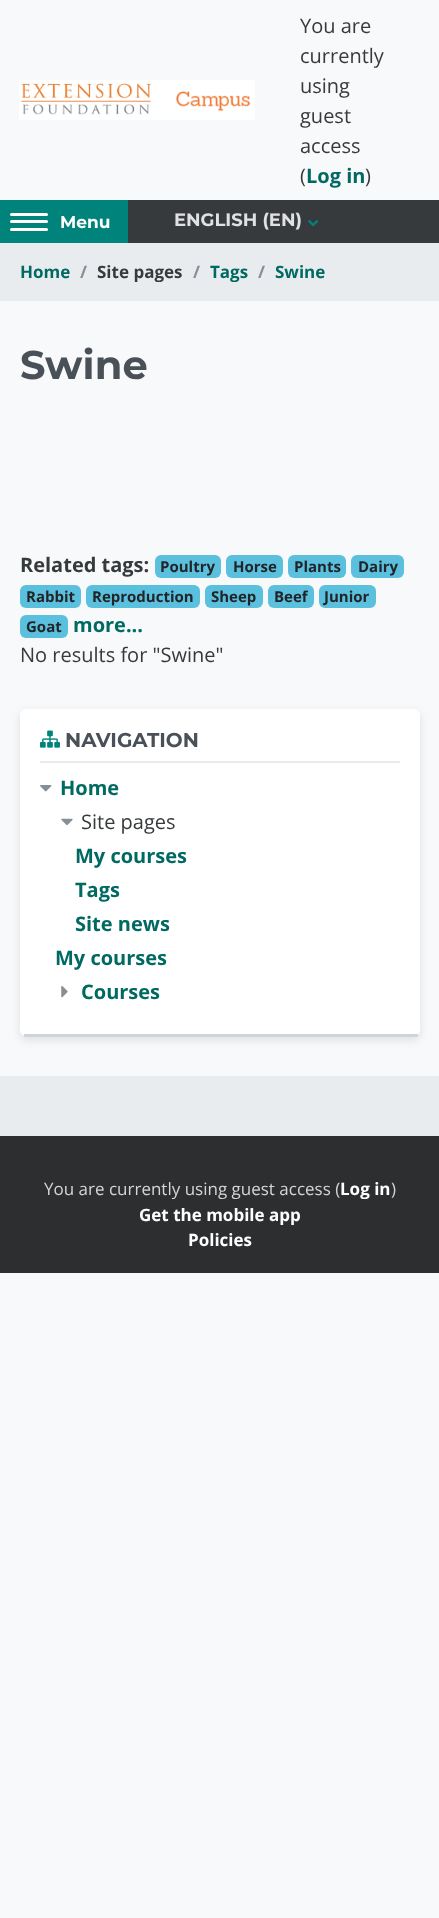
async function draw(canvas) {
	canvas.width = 439;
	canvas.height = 1918;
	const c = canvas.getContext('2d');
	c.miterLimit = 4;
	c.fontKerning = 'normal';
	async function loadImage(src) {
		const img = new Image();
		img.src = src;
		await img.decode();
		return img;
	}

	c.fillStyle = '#f8f9fa';
	c.fillRect(0, 0, 439, 1918);
	c.drawImage(await loadImage('img1.png'), 19, 80, 236, 40);
	c.font = '20px Open Sans';
	c.fillStyle = '#373a3c';
	for (const [text, x, y] of [
		['You are', 300, 33],
		['currently', 300, 63],
		['using', 300, 93],
		['guest', 300, 123],
		['access', 300, 153],
		['(', 300, 183],
	]) {
		c.fillText(text, x, y);
	}
	c.font = 'bold 20px Open Sans';
	c.fillStyle = '#006a62';
	c.fillText('Log in', 306, 183);
	c.font = '20px Open Sans';
	c.fillStyle = '#373a3c';
	c.fillText(')', 365, 183);
	c.fillRect(128, 200, 311, 43);
	c.fillStyle = '#00837a';
	c.fillRect(0, 200, 128, 43);
	c.fillStyle = '#fff';
	c.beginPath();
	c.roundRect(10, 213, 38, 3, 1.5);
	c.fill();
	c.beginPath();
	c.roundRect(10, 220, 38, 3, 1.5);
	c.fill();
	c.beginPath();
	c.roundRect(10, 228, 38, 3, 1.5);
	c.fill();
	c.font = 'bold 17px Montserrat';
	c.fillText('Menu', 60, 228);
	c.font = 'bold 18px Montserrat';
	c.fillStyle = '#e1e1e2';
	c.fillText('ENGLISH (EN)', 174, 226);
	c.drawImage(await loadImage('img2.png'), 308, 220, 11, 7);
	c.fillStyle = '#e9ecef';
	c.fillRect(0, 243, 439, 58);
	c.font = 'bold 17px Open Sans';
	c.fillStyle = '#006a62';
	c.fillText('Home', 20, 278);
	c.fillStyle = '#868e96';
	c.fillText('/', 80, 278);
	c.fillStyle = '#373a3c';
	c.fillText('Site pages', 97, 278);
	c.fillStyle = '#868e96';
	c.fillText('/', 193, 278);
	c.fillStyle = '#006a62';
	c.fillText('Tags', 210, 278);
	c.fillStyle = '#868e96';
	c.fillText('/', 258, 278);
	c.fillStyle = '#006a62';
	c.fillText('Swine', 275, 278);
	c.font = 'bold 40px Montserrat';
	c.fillStyle = '#495057';
	c.fillText('Swine', 20, 379);
	c.font = 'bold 20px Open Sans';
	c.fillStyle = '#373a3c';
	c.fillText('Related tags:', 20, 572);
	c.fillStyle = '#5bc0de';
	c.beginPath();
	c.roundRect(155, 555, 66, 23, 6);
	c.fill();
	c.font = 'bold 15px Open Sans';
	c.fillStyle = '#212529';
	c.fillText('Poultry', 160, 572);
	c.fillStyle = '#5bc0de';
	c.beginPath();
	c.roundRect(226, 555, 57, 23, 6);
	c.fill();
	c.fillStyle = '#212529';
	c.fillText('Horse', 233, 572);
	c.fillStyle = '#5bc0de';
	c.beginPath();
	c.roundRect(288, 555, 58, 23, 6);
	c.fill();
	c.fillStyle = '#212529';
	c.fillText('Plants', 294, 572);
	c.fillStyle = '#5bc0de';
	c.beginPath();
	c.roundRect(351, 555, 53, 23, 6);
	c.fill();
	c.fillStyle = '#212529';
	c.fillText('Dairy', 358, 572);
	c.fillStyle = '#5bc0de';
	c.beginPath();
	c.roundRect(20, 585, 61, 23, 6);
	c.fill();
	c.fillStyle = '#212529';
	c.fillText('Rabbit', 26, 602);
	c.fillStyle = '#5bc0de';
	c.beginPath();
	c.roundRect(86, 585, 114, 23, 6);
	c.fill();
	c.fillStyle = '#212529';
	c.fillText('Reproduction', 92, 602);
	c.fillStyle = '#5bc0de';
	c.beginPath();
	c.roundRect(205, 585, 58, 23, 6);
	c.fill();
	c.fillStyle = '#212529';
	c.fillText('Sheep', 211, 602);
	c.fillStyle = '#5bc0de';
	c.beginPath();
	c.roundRect(268, 585, 46, 23, 6);
	c.fill();
	c.fillStyle = '#212529';
	c.fillText('Beef', 274, 602);
	c.fillStyle = '#5bc0de';
	c.beginPath();
	c.roundRect(319, 585, 57, 23, 6);
	c.fill();
	c.fillStyle = '#212529';
	c.fillText('Junior', 324, 602);
	c.fillStyle = '#5bc0de';
	c.beginPath();
	c.roundRect(20, 615, 48, 23, 6);
	c.fill();
	c.fillStyle = '#212529';
	c.fillText('Goat', 26, 632);
	c.font = 'bold 20px Open Sans';
	c.fillStyle = '#006a62';
	c.fillText('more...', 73, 632);
	c.font = '20px Open Sans';
	c.fillStyle = '#373a3c';
	c.fillText('No results for "Swine"', 20, 662);
	c.fillStyle = '#0000001a';
	c.filter = 'blur(5px)';
	c.beginPath();
	c.roundRect(20, 713, 400, 327, 6);
	c.fill();
	c.filter = 'none';
	c.fillStyle = '#fff';
	c.beginPath();
	c.roundRect(20, 709, 400, 327, 6);
	c.fill();
	c.fillStyle = '#ced4da';
	c.fillRect(24, 1034, 394, 3);
	c.fillStyle = '#e9ecef';
	c.fillRect(40, 761, 360, 2);
	c.drawImage(await loadImage('img3.png'), 40, 730, 20, 18);
	c.font = 'bold 20px Montserrat';
	c.fillStyle = '#495057';
	c.fillText('NAVIGATION', 65, 747);
	c.drawImage(await loadImage('img4.png'), 40, 785, 12, 7);
	c.font = 'bold 20px Open Sans';
	c.fillStyle = '#006a62';
	c.fillText('Home', 60, 795);
	c.drawImage(await loadImage('img5.png'), 61, 818, 12, 8);
	c.font = '20px Open Sans';
	c.fillStyle = '#373a3c';
	c.fillText('Site pages', 81, 829);
	c.font = 'bold 20px Open Sans';
	c.fillStyle = '#006a62';
	for (const [text, x, y] of [
		['My courses', 75, 863],
		['Tags', 75, 897],
		['Site news', 75, 931],
		['My courses', 55, 965],
	]) {
		c.fillText(text, x, y);
	}
	c.drawImage(await loadImage('img6.png'), 61, 986, 7, 12);
	c.fillText('Courses', 81, 999);
	c.fillStyle = '#e9ecef';
	c.fillRect(0, 1076, 439, 60);
	c.fillStyle = '#2c2e30';
	c.fillRect(0, 1136, 439, 137);
	c.font = '17px Open Sans';
	c.fillStyle = '#d5d5d6';
	c.fillText('You are currently using guest access (', 44, 1195);
	c.font = 'bold 17px Open Sans';
	c.fillStyle = '#fff';
	c.fillText('Log in', 340, 1195);
	c.font = '17px Open Sans';
	c.fillStyle = '#d5d5d6';
	c.fillText(')', 391, 1195);
	c.font = 'bold 17px Open Sans';
	c.fillStyle = '#fff';
	c.fillText('Get the mobile app', 139, 1221);
	c.fillText('Policies', 188, 1246);
}

draw(document.querySelector('canvas'));
